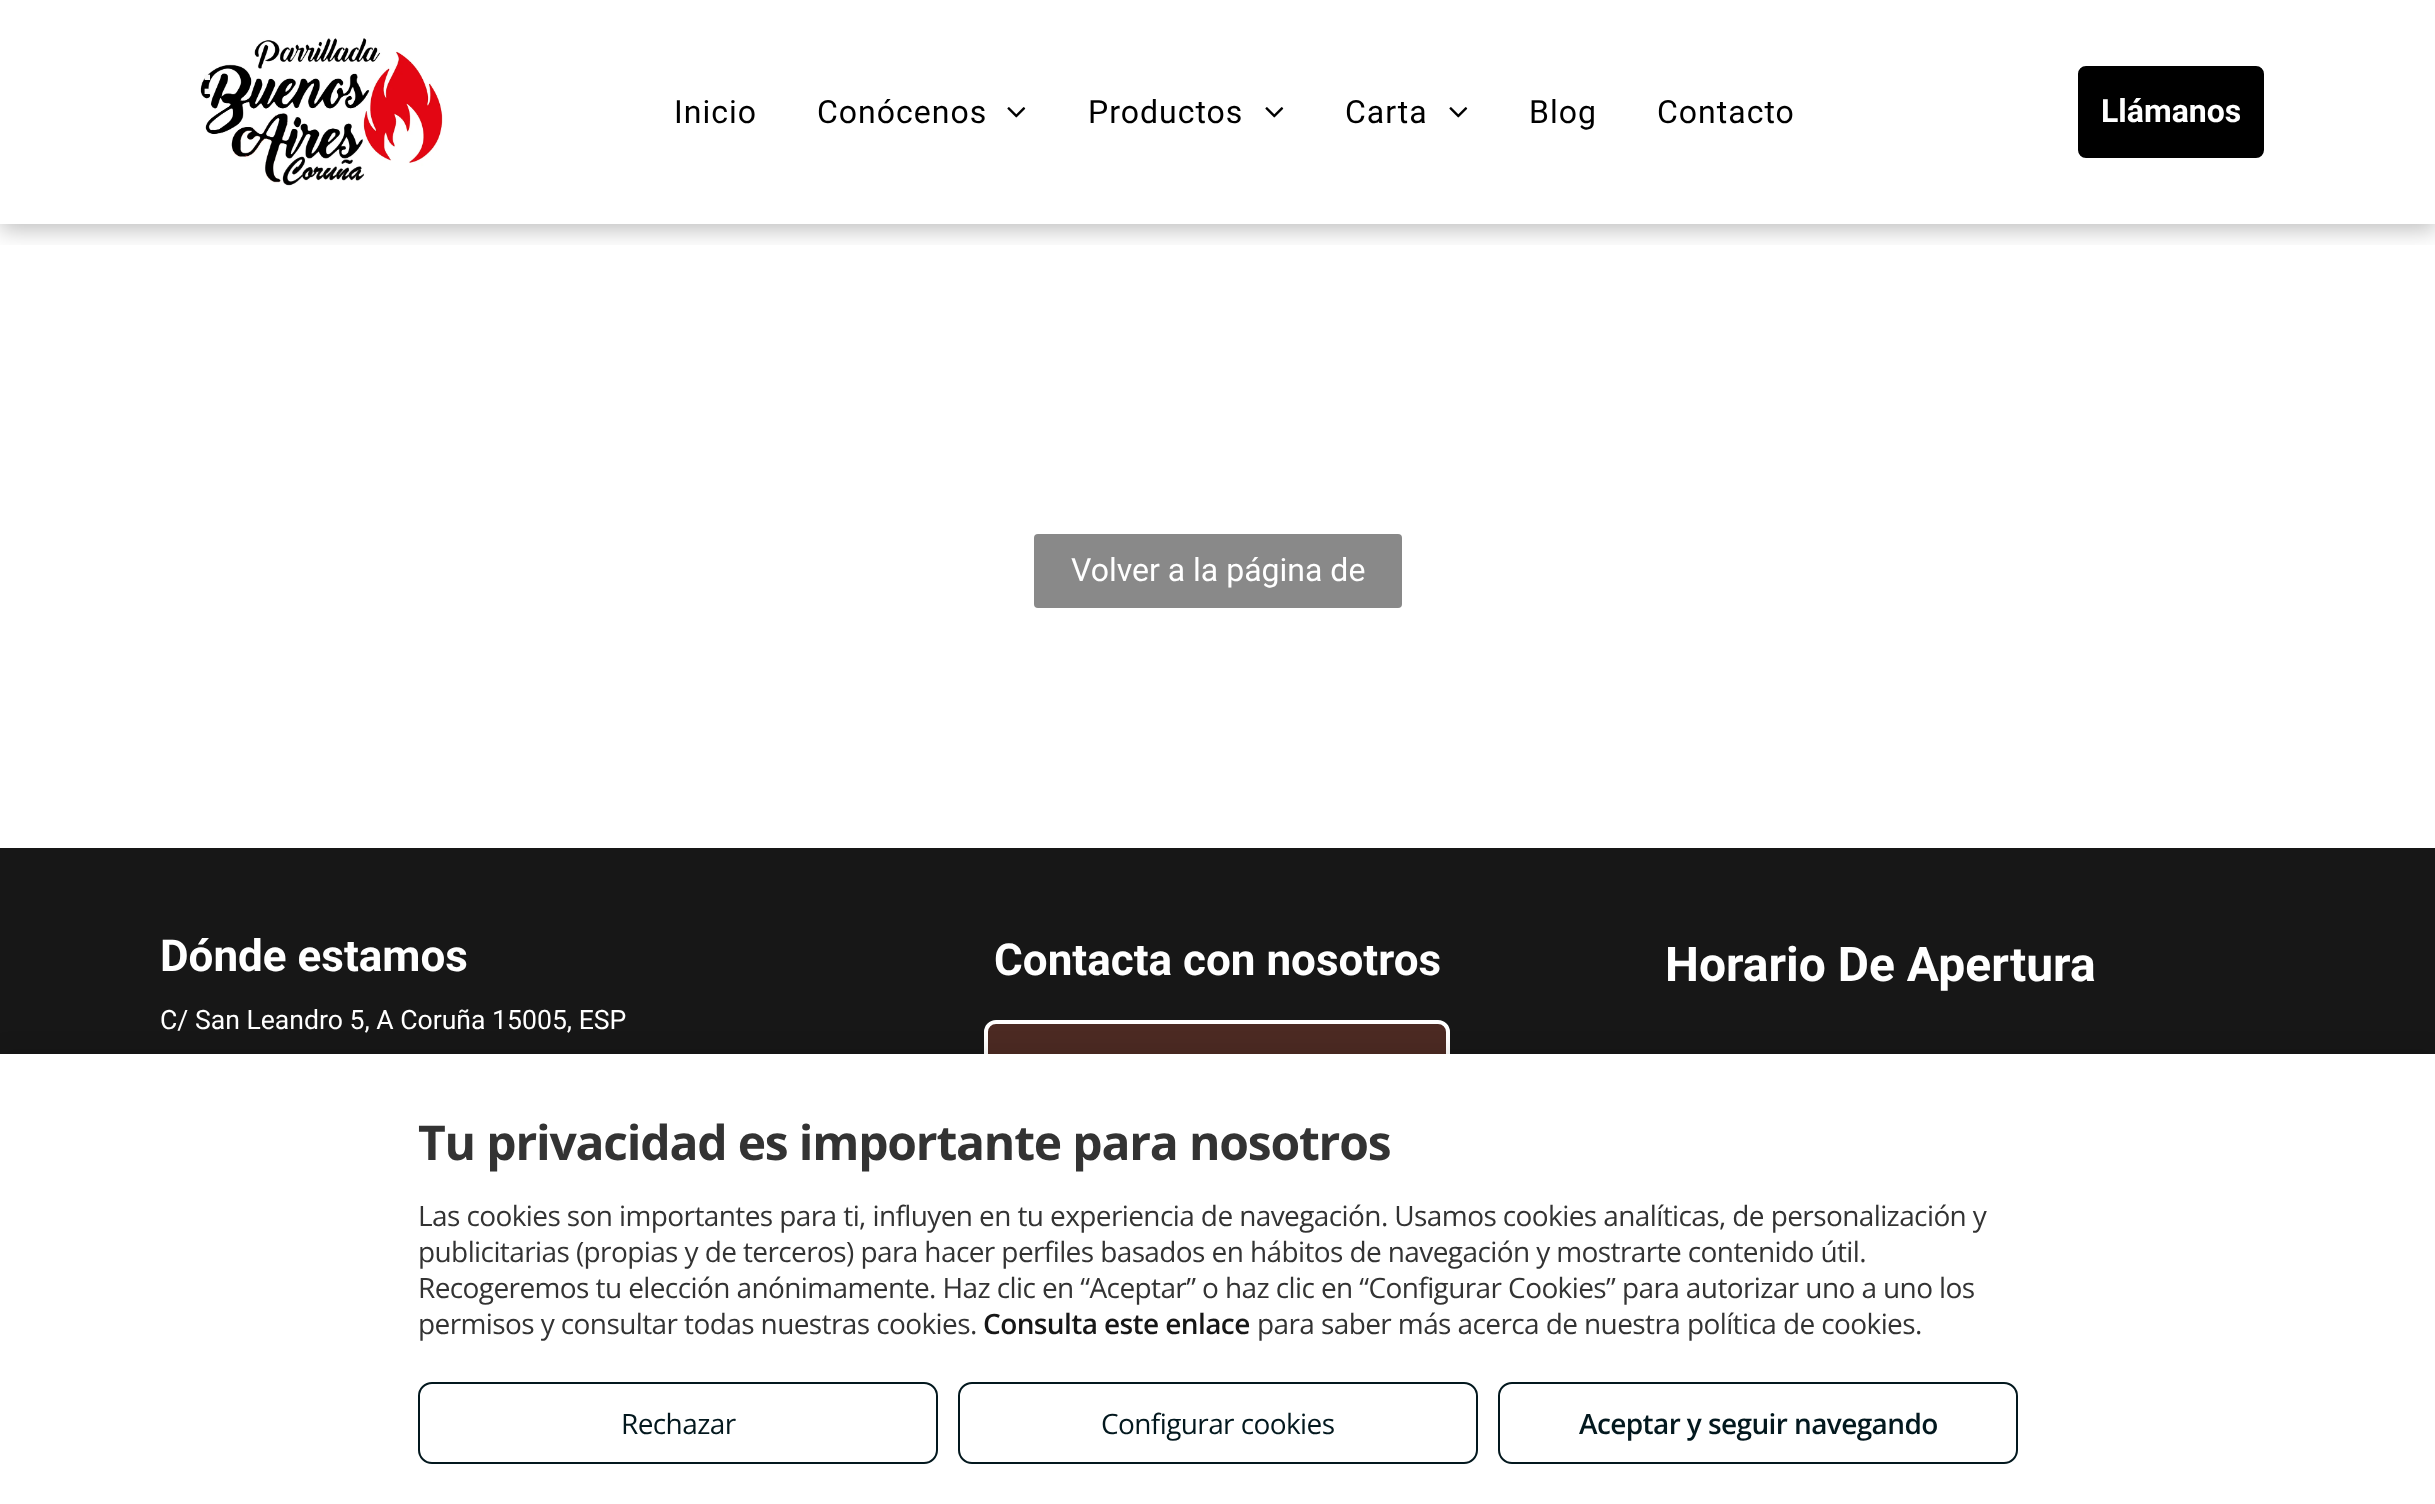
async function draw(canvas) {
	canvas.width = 2435;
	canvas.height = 1504;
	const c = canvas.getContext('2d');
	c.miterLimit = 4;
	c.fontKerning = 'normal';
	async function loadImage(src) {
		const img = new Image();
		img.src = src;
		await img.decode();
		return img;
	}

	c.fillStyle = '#fff';
	c.fillRect(0, 0, 2435, 1504);
	c.save();
	c.beginPath();
	c.rect(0, 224, 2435, 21);
	c.clip();
	c.fillStyle = '#00000040';
	c.filter = 'blur(11px)';
	c.beginPath();
	c.rect(0, 4, 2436, 226);
	c.fill();
	c.filter = 'none';
	c.restore();
	c.drawImage(await loadImage('img1.png'), 200, 38, 243, 148);
	c.font = 'bold 38px Liberation Sans';
	c.fillStyle = '#f8f8f8';
	c.fillText(':', 201, 94);
	c.letterSpacing = '1px';
	c.font = '32px Roboto';
	c.fillStyle = '#000';
	c.fillText('Inicio', 674, 123);
	c.fillText('Conócenos', 817, 123);
	c.drawImage(await loadImage('img2.png'), 1007, 107, 19, 11);
	c.fillText('Productos', 1088, 123);
	c.drawImage(await loadImage('img2.png'), 1265, 107, 19, 11);
	c.fillText('Carta', 1345, 123);
	c.drawImage(await loadImage('img2.png'), 1449, 107, 19, 11);
	c.fillText('Blog', 1529, 123);
	c.fillText('Contacto', 1657, 123);
	c.beginPath();
	c.roundRect(2076, 64, 190, 96, 10);
	c.fill();
	c.strokeStyle = '#fff';
	c.lineWidth = 4;
	c.stroke();
	c.letterSpacing = '0px';
	c.font = 'bold 32px Roboto';
	c.fillStyle = '#fff';
	c.fillText('Llámanos', 2101, 122);
	c.fillStyle = '#898989';
	c.beginPath();
	c.roundRect(1034, 534, 368, 74, 4);
	c.fill();
	c.font = '32px Roboto';
	c.fillStyle = '#fff';
	c.fillText('Volver a la página de', 1071, 581);
	c.fillStyle = '#171717';
	c.fillRect(0, 848, 2435, 206);
	c.font = 'bold 44px Roboto';
	c.fillStyle = '#fff';
	c.fillText('Dónde estamos', 160, 971);
	c.font = '26.6px Roboto';
	c.fillText('C/ San Leandro 5, A Coruña 15005, ESP', 160, 1029);
	c.font = 'bold 44px Roboto';
	c.fillText('Contacta con nosotros', 994, 975);
	c.fillStyle = '#4c2a23';
	c.beginPath();
	c.roundRect(986, 1022, 462, 92, 10);
	c.fill();
	c.stroke();
	c.font = 'bold 48px Roboto';
	c.fillStyle = '#fff';
	c.fillText('Horario De Apertura', 1665, 981);
	c.fillStyle = '#0000001a';
	c.filter = 'blur(10px)';
	c.beginPath();
	c.rect(0, 1050, 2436, 450);
	c.fill();
	c.filter = 'none';
	c.fillStyle = '#fff';
	c.fillRect(0, 1054, 2435, 450);
	c.letterSpacing = '-1.2px';
	c.font = 'bold 48px Open Sans';
	c.fillStyle = '#333';
	c.fillText('Tu privacidad es importante para nosotros', 418, 1160);
	c.letterSpacing = '-0.6px';
	c.font = '28px Open Sans';
	for (const [text, x, y] of [
		['Las cookies son importantes para ti, influyen en tu experiencia de navegación. Usamos cookies analíticas, de personalización y', 418, 1226],
		['publicitarias (propias y de terceros) para hacer perfiles basados en hábitos de navegación y mostrarte contenido útil.', 418, 1262],
		['Recogeremos tu elección anónimamente. Haz clic en “Aceptar” o haz clic en “Configurar Cookies” para autorizar uno a uno los', 418, 1298],
		['permisos y consultar todas nuestras cookies.', 418, 1334],
	]) {
		c.fillText(text, x, y);
	}
	c.font = '600 28px Open Sans';
	c.fillStyle = '#171717';
	c.fillText('Consulta este enlace', 983, 1334);
	c.font = '28px Open Sans';
	c.fillStyle = '#333';
	c.fillText('para saber más acerca de nuestra política de cookies.', 1257, 1334);
	c.beginPath();
	c.roundRect(419, 1383, 518, 80, 13);
	c.strokeStyle = '#03181e';
	c.lineWidth = 2;
	c.stroke();
	c.fillStyle = '#03181e';
	c.fillText('Rechazar', 621, 1434);
	c.beginPath();
	c.roundRect(959, 1383, 518, 80, 13);
	c.stroke();
	c.fillText('Configurar cookies', 1101, 1434);
	c.beginPath();
	c.roundRect(1499, 1383, 518, 80, 13);
	c.stroke();
	c.font = '600 28px Open Sans';
	c.fillText('Aceptar y seguir navegando', 1579, 1434);
}

draw(document.querySelector('canvas'));
